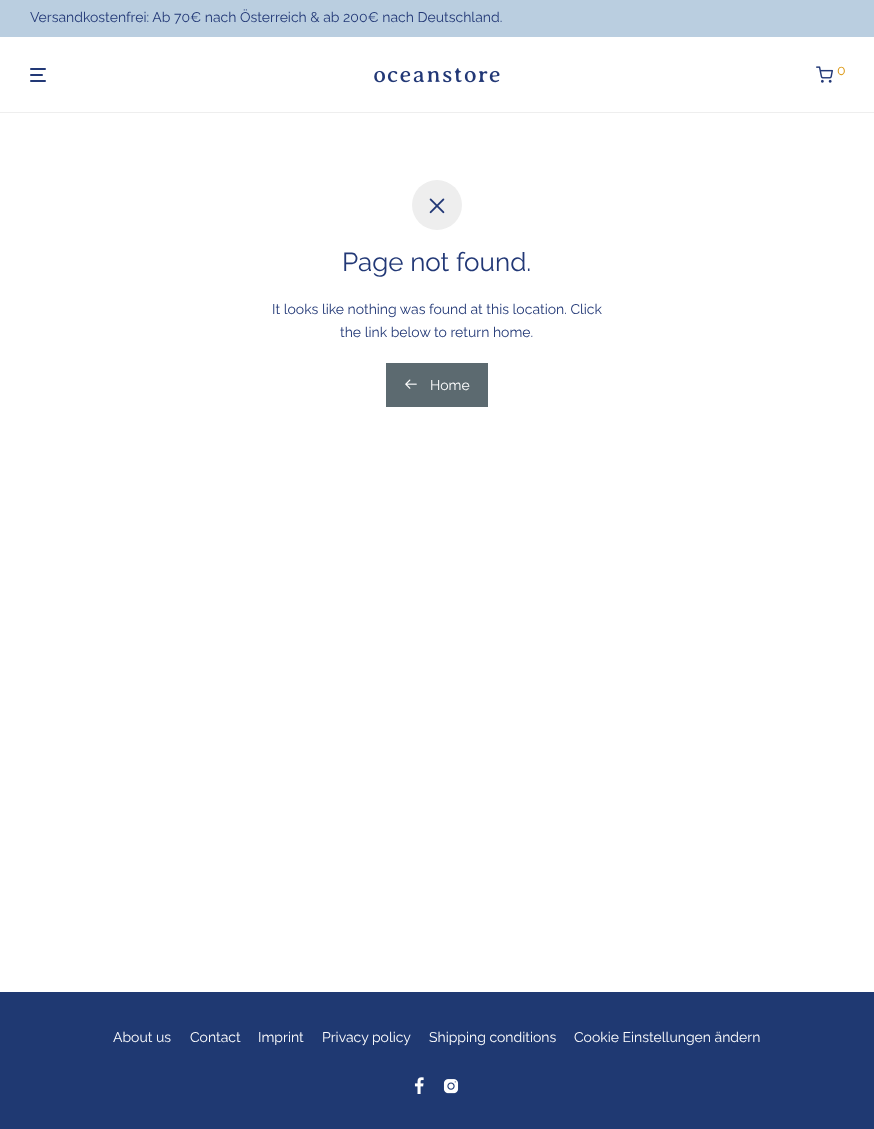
async function draw(canvas) {
	canvas.width = 874;
	canvas.height = 1129;
	const c = canvas.getContext('2d');
	c.miterLimit = 4;
	c.fontKerning = 'normal';
	async function loadImage(src) {
		const img = new Image();
		img.src = src;
		await img.decode();
		return img;
	}

	c.fillStyle = '#fff';
	c.fillRect(0, 0, 874, 1129);
	c.fillStyle = '#bacee0';
	c.fillRect(0, 0, 874, 37);
	c.font = '14px Raleway';
	c.fillStyle = '#223876';
	c.fillText('Versandkostenfrei: Ab 70€ nach Österreich & ab 200€ nach Deutschland.', 30, 22);
	c.fillStyle = '#eee';
	c.fillRect(0, 112, 874, 1);
	c.fillStyle = '#223876';
	c.beginPath();
	c.roundRect(30, 68, 16, 2, 1);
	c.fill();
	c.beginPath();
	c.roundRect(30, 74, 13, 2, 1);
	c.fill();
	c.beginPath();
	c.roundRect(30, 80, 16, 2, 1);
	c.fill();
	c.drawImage(await loadImage('img1.png'), 374, 68, 126, 15);
	c.drawImage(await loadImage('img2.png'), 816, 66, 17, 17);
	c.fillStyle = '#dc9814';
	c.fillText('0', 837, 75);
	c.fillStyle = '#eee';
	c.beginPath();
	c.arc(437, 205, 25, 0, 2 * Math.PI);
	c.fill();
	c.drawImage(await loadImage('img3.png'), 429, 198, 16, 16);
	c.font = '26px Raleway';
	c.fillStyle = '#223876';
	c.fillText('Page not found.', 342, 271);
	c.font = '14px Raleway';
	c.fillText('It looks like nothing was found at this location. Click', 272, 314);
	c.fillText('the link below to return home.', 340, 337);
	c.fillStyle = '#5c6a70';
	c.fillRect(386, 363, 102, 44);
	c.drawImage(await loadImage('img4.png'), 405, 379, 12, 10);
	c.fillStyle = '#fff';
	c.fillText('Home', 430, 390);
	c.fillStyle = '#1f3972';
	c.fillRect(0, 992, 874, 137);
	c.fillStyle = '#fff';
	for (const [text, x, y] of [
		['About us', 113, 1042],
		['Contact', 190, 1042],
		['Imprint', 258, 1042],
		['Privacy policy', 322, 1042],
		['Shipping conditions', 429, 1042],
		['Cookie Einstellungen ändern', 574, 1042],
	]) {
		c.fillText(text, x, y);
	}
	c.drawImage(await loadImage('img5.png'), 414, 1077, 10, 17);
	c.drawImage(await loadImage('img6.png'), 443, 1079, 16, 15);
}

draw(document.querySelector('canvas'));
